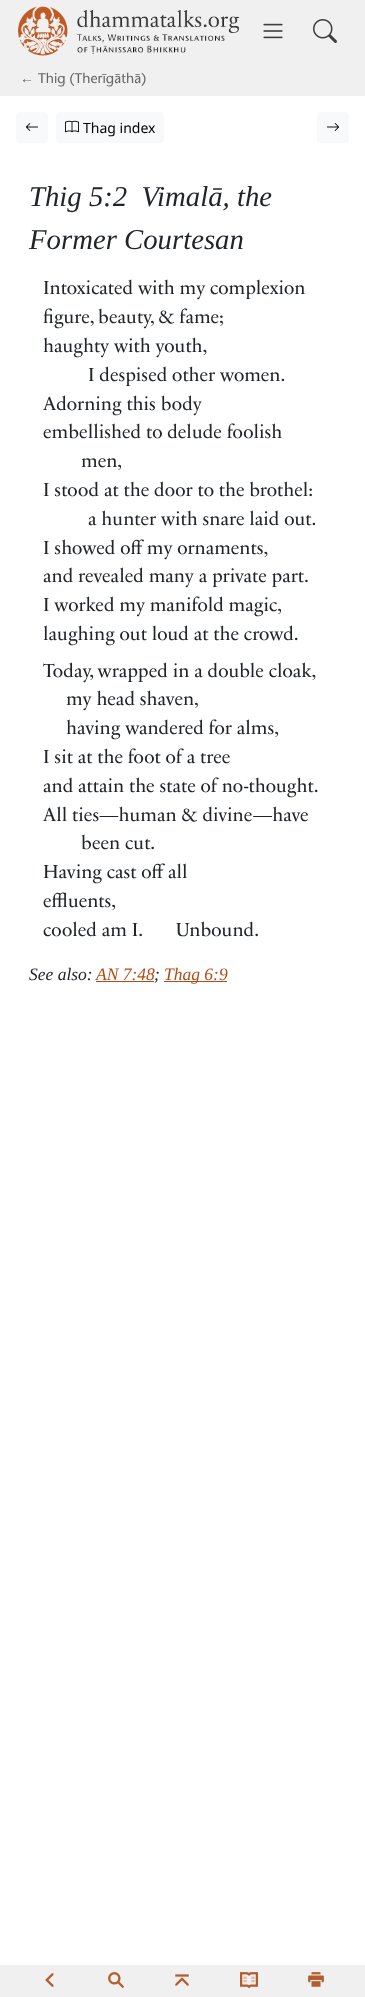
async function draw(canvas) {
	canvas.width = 365;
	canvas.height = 1997;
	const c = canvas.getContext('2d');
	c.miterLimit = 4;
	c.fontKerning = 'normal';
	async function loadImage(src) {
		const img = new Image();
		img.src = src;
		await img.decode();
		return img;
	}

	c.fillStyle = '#fff';
	c.fillRect(0, 0, 365, 1997);
	c.fillStyle = '#f0f0f0';
	c.fillRect(0, 0, 365, 96);
	c.drawImage(await loadImage('img1.png'), 18, 6, 221, 50);
	c.drawImage(await loadImage('img2.png'), 263, 23, 20, 16);
	c.drawImage(await loadImage('img3.png'), 313, 19, 24, 24);
	c.font = '14px Liberation Sans';
	c.fillStyle = '#666';
	c.fillText('←', 20, 83);
	c.font = '14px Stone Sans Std';
	c.fillText('Thig (Therīgāthā)', 38, 83);
	c.fillStyle = '#f8f9fa';
	c.beginPath();
	c.roundRect(16, 112, 32, 31, 4);
	c.fill();
	c.drawImage(await loadImage('img4.png'), 26, 123, 12, 8);
	c.beginPath();
	c.roundRect(56, 112, 108, 31, 4);
	c.fill();
	c.drawImage(await loadImage('img5.png'), 65, 120, 14, 13);
	c.font = '14px Noto Sans';
	c.fillStyle = '#000';
	c.fillText('Thag index', 83, 133);
	c.fillStyle = '#f8f9fa';
	c.beginPath();
	c.roundRect(317, 112, 32, 31, 4);
	c.fill();
	c.drawImage(await loadImage('img6.png'), 327, 123, 12, 8);
	c.font = 'italic 28.75px Liberation Serif';
	c.fillStyle = '#212529';
	c.fillText('Thig 5:2  Vimalā, the', 29, 206);
	c.fillText('Former Courtesan', 29, 249);
	c.font = '19.25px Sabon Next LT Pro';
	for (const [text, x, y] of [
		['Intoxicated with my complexion', 43, 294],
		['figure, beauty, & fame;', 43, 323],
		['haughty with youth,', 43, 352],
		['I despised other women.', 88, 381],
		['Adorning this body', 43, 410],
		['embellished to delude foolish', 43, 438],
		['men,', 81, 467],
		['I stood at the door to the brothel:', 43, 496],
		['a hunter with snare laid out.', 88, 525],
		['I showed off my ornaments,', 43, 554],
		['and revealed many a private part.', 43, 582],
		['I worked my manifold magic,', 43, 611],
		['laughing out loud at the crowd.', 43, 640],
		['Today, wrapped in a double cloak,', 43, 677],
		['my head shaven,', 66, 705],
		['having wandered for alms,', 66, 734],
		['I sit at the foot of a tree', 43, 763],
		['and attain the state of no-thought.', 43, 792],
		['All ties—human & divine—have', 43, 821],
		['been cut.', 81, 849],
		['Having cast off all', 43, 878],
		['effluents,', 43, 907],
		['cooled am I.       Unbound.', 43, 936],
	]) {
		c.fillText(text, x, y);
	}
	c.font = 'italic 17.5px Liberation Serif';
	c.fillText('See also:', 29, 980);
	c.fillStyle = '#b14c16';
	c.fillText('AN 7:48', 96, 980);
	c.fillRect(96, 981, 58, 1);
	c.fillStyle = '#212529';
	c.fillText(';', 154, 980);
	c.fillStyle = '#b14c16';
	c.fillRect(164, 981, 63, 1);
	c.fillText('Thag 6:9', 164, 980);
	c.fillStyle = '#f0f0f0';
	c.fillRect(0, 1965, 365, 32);
	c.drawImage(await loadImage('img7.png'), 45, 1973, 9, 14);
	c.drawImage(await loadImage('img8.png'), 108, 1972, 16, 16);
	c.drawImage(await loadImage('img9.png'), 175, 1974, 14, 12);
	c.drawImage(await loadImage('img10.png'), 240, 1972, 18, 17);
	c.drawImage(await loadImage('img11.png'), 308, 1972, 16, 15);
}

draw(document.querySelector('canvas'));
